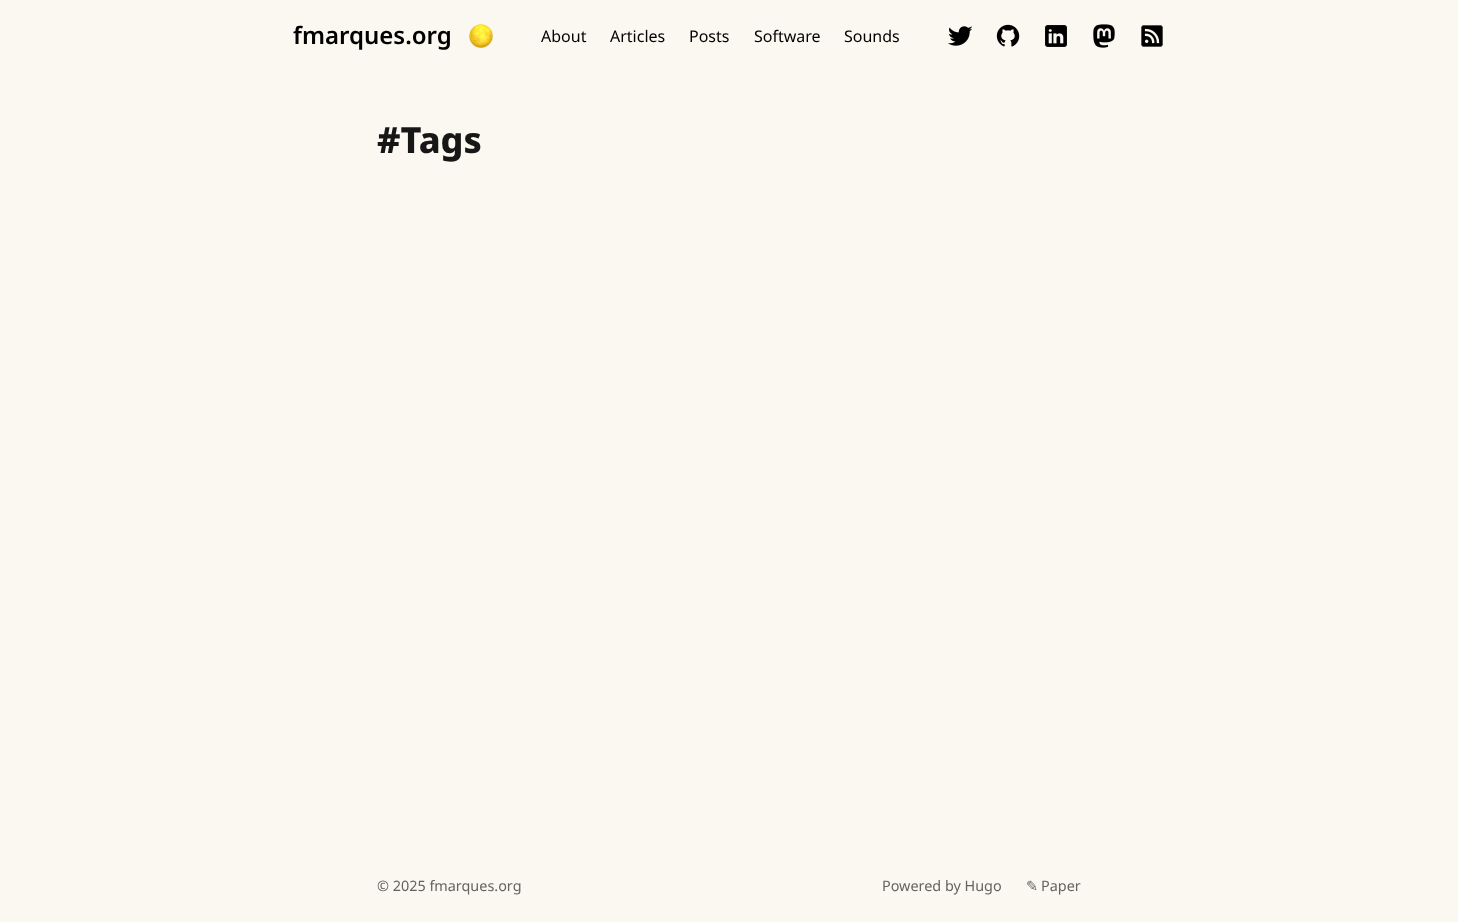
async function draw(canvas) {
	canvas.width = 1458;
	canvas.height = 922;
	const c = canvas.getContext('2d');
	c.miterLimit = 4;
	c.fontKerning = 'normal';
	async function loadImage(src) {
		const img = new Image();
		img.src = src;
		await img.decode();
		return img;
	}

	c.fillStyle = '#faf8f1';
	c.fillRect(0, 0, 1458, 922);
	c.font = '600 24px Noto Sans';
	c.fillStyle = '#000';
	c.fillText('fmarques.org', 293, 44);
	c.drawImage(await loadImage('img1.png'), 469, 24, 24, 24);
	c.font = '16px Noto Sans';
	for (const [text, x, y] of [
		['About', 541, 42],
		['Articles', 610, 42],
		['Posts', 689, 42],
		['Software', 754, 42],
		['Sounds', 844, 42],
	]) {
		c.fillText(text, x, y);
	}
	c.drawImage(await loadImage('img2.png'), 948, 26, 24, 20);
	c.drawImage(await loadImage('img3.png'), 996, 24, 24, 23);
	c.drawImage(await loadImage('img4.png'), 1045, 25, 22, 22);
	c.drawImage(await loadImage('img5.png'), 1093, 24, 22, 24);
	c.drawImage(await loadImage('img6.png'), 1141, 25, 22, 22);
	c.font = '800 36px Noto Sans';
	c.fillStyle = '#171717';
	c.fillText('#Tags', 377, 153);
	c.font = '14.4px Noto Sans';
	c.fillStyle = '#646360';
	c.fillText('© 2025 fmarques.org', 377, 891);
	c.fillText('Powered by Hugo️️', 882, 891);
	c.font = '14.4px DejaVu Sans';
	c.fillText('✎', 1026, 891);
	c.font = '14.4px Noto Sans';
	c.fillText('Paper', 1041, 891);
}

draw(document.querySelector('canvas'));
